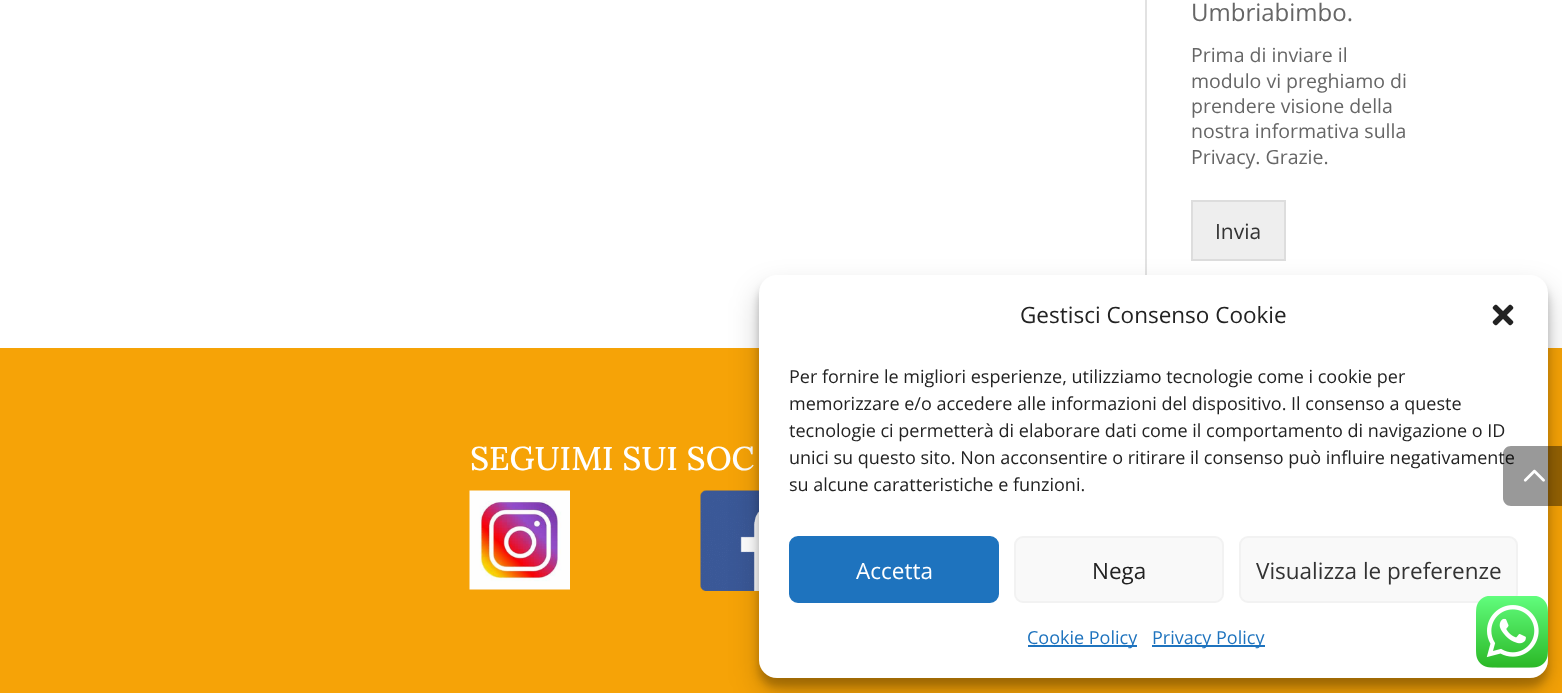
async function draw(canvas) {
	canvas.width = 1562;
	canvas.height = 693;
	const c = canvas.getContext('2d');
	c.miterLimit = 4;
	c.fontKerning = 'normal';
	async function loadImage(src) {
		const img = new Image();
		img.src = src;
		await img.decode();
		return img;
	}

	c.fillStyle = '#fff';
	c.fillRect(0, 0, 1562, 693);
	c.fillStyle = '#e2e2e2';
	c.fillRect(1145, 0, 2, 275);
	c.font = '24px Open Sans';
	c.fillStyle = '#666';
	c.fillText('Umbriabimbo.', 1191, 21);
	c.font = '19.5px Open Sans';
	for (const [text, x, y] of [
		['Prima di inviare il', 1191, 62],
		['modulo vi preghiamo di', 1191, 88],
		['prendere visione della', 1191, 113],
		['nostra informativa sulla', 1191, 138],
		['Privacy. Grazie.', 1191, 164],
	]) {
		c.fillText(text, x, y);
	}
	c.fillStyle = '#eee';
	c.beginPath();
	c.rect(1192, 201, 93, 59);
	c.fill();
	c.strokeStyle = '#ddd';
	c.lineWidth = 2;
	c.stroke();
	c.font = '21px Open Sans';
	c.fillStyle = '#333';
	c.fillText('Invia', 1215, 239);
	c.fillStyle = '#f6a307';
	c.fillRect(0, 348, 1562, 345);
	c.font = '500 33px Lora';
	c.fillStyle = '#fff';
	c.fillText('SEGUIMI SUI SOC', 470, 470);
	c.drawImage(await loadImage('img1.png'), 469, 490, 101, 100);
	c.drawImage(await loadImage('img2.png'), 700, 490, 59, 101);
	c.fillStyle = '#0000003b';
	c.filter = 'blur(4.5px)';
	c.beginPath();
	c.roundRect(759, 284, 789, 403, 18);
	c.fill();
	c.filter = 'none';
	c.fillStyle = '#00000030';
	c.filter = 'blur(15px)';
	c.beginPath();
	c.roundRect(759, 290, 789, 403, 18);
	c.fill();
	c.filter = 'none';
	c.fillStyle = '#fff';
	c.beginPath();
	c.roundRect(759, 275, 789, 403, 18);
	c.fill();
	c.font = '22.5px Open Sans';
	c.fillStyle = '#222';
	c.fillText('Gestisci Consenso Cookie', 1020, 323);
	c.drawImage(await loadImage('img3.png'), 1492, 304, 22, 22);
	c.font = '18px Open Sans';
	for (const [text, x, y] of [
		['Per fornire le migliori esperienze, utilizziamo tecnologie come i cookie per', 789, 383],
		['memorizzare e/o accedere alle informazioni del dispositivo. Il consenso a queste', 789, 410],
		['tecnologie ci permetterà di elaborare dati come il comportamento di navigazione o ID', 789, 437],
		['unici su questo sito. Non acconsentire o ritirare il consenso può influire negativamente', 789, 464],
		['su alcune caratteristiche e funzioni.', 789, 491],
	]) {
		c.fillText(text, x, y);
	}
	c.fillStyle = '#1e73be';
	c.beginPath();
	c.roundRect(790, 537, 208, 65, 8);
	c.fill();
	c.strokeStyle = '#1e73be';
	c.stroke();
	c.font = '22.5px Open Sans';
	c.fillStyle = '#fff';
	c.fillText('Accetta', 856, 579);
	c.fillStyle = '#f9f9f9';
	c.beginPath();
	c.roundRect(1015, 537, 208, 65, 8);
	c.fill();
	c.strokeStyle = '#f2f2f2';
	c.stroke();
	c.fillStyle = '#222';
	c.fillText('Nega', 1092, 579);
	c.fillStyle = '#f9f9f9';
	c.beginPath();
	c.roundRect(1240, 537, 277, 65, 8);
	c.fill();
	c.stroke();
	c.fillStyle = '#333';
	c.fillText('Visualizza le preferenze', 1256, 579);
	c.fillStyle = '#1e73be';
	c.fillRect(1028, 645, 109, 2);
	c.font = '18px Open Sans';
	c.fillText('Cookie Policy', 1027, 644);
	c.fillRect(1152, 645, 113, 2);
	c.fillText('Privacy Policy', 1152, 644);
	c.fillStyle = '#00000066';
	c.beginPath();
	c.moveTo(1511, 446);
	c.lineTo(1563, 446);
	c.lineTo(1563, 506);
	c.lineTo(1511, 506);
	c.bezierCurveTo(1506.5, 506, 1503, 502.5, 1503, 498);
	c.lineTo(1503, 454);
	c.bezierCurveTo(1503, 449.5, 1506.5, 446, 1511, 446);
	c.closePath();
	c.fill();
	c.drawImage(await loadImage('img4.png'), 1523, 469, 22, 13);
	c.drawImage(await loadImage('img5.png'), 1476, 596, 72, 72);
}

draw(document.querySelector('canvas'));
